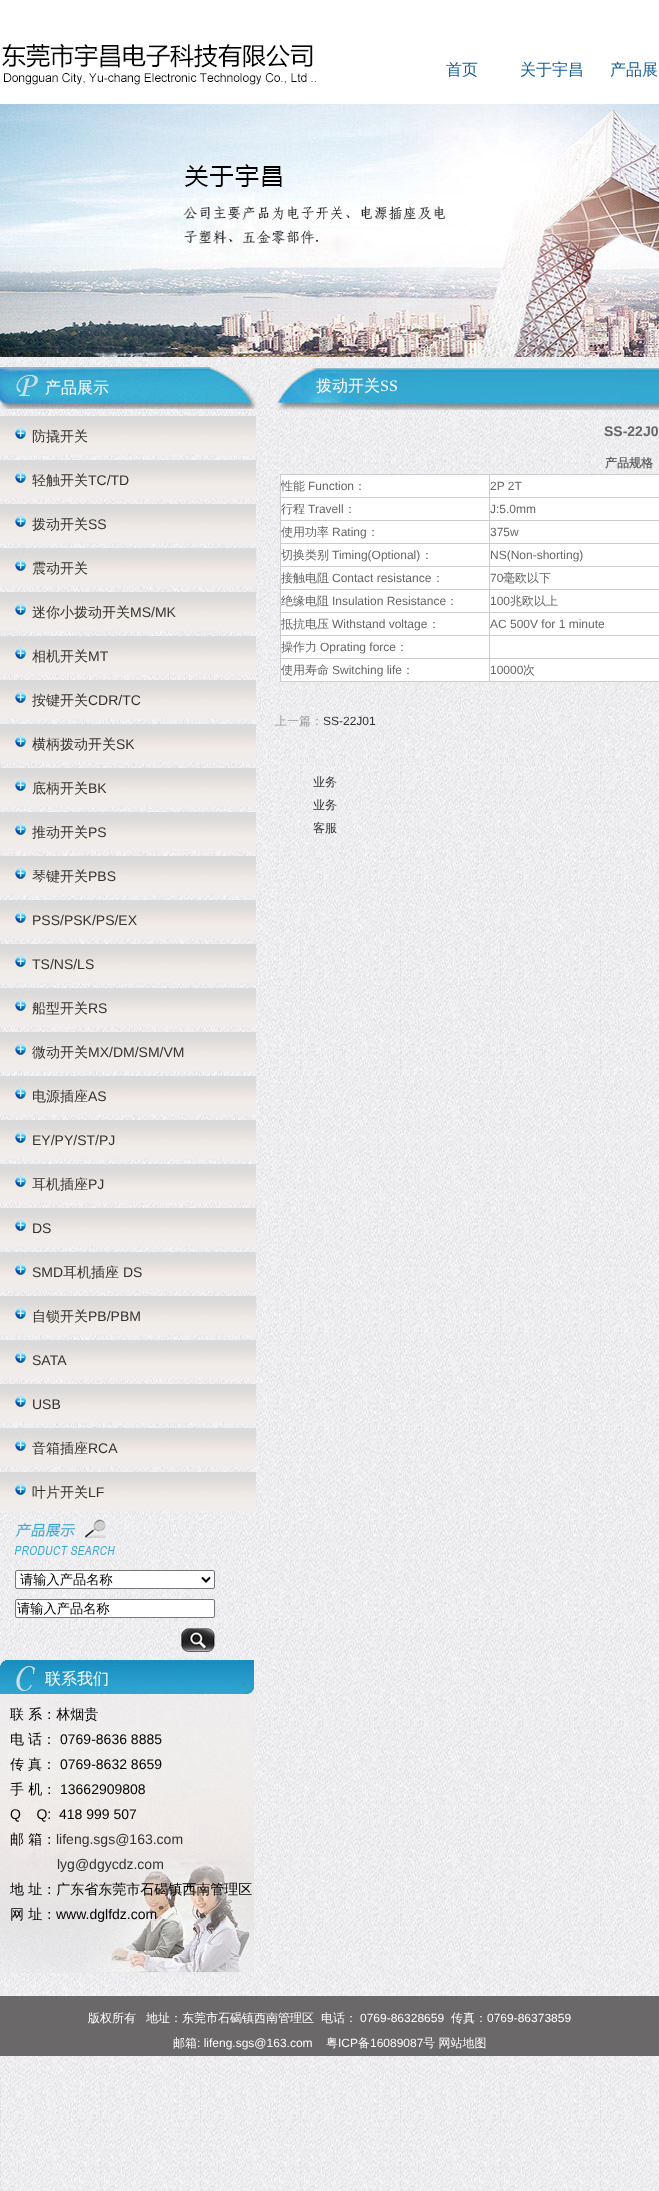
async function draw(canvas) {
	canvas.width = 659;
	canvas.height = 2191;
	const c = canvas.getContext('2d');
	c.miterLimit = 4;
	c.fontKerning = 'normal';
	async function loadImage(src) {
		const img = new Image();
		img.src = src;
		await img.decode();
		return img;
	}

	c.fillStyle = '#fff';
	c.fillRect(0, 0, 659, 2191);
	c.drawImage(await loadImage('img1.png'), 0, 357, 659, 1834);
	c.drawImage(await loadImage('img2.png'), 0, 41, 316, 47);
	c.font = '500 16px WenQuanYi Zen Hei';
	c.fillStyle = '#125f97';
	for (const [text, x, y] of [
		['首页', 446, 75],
		['关于宇昌', 520, 75],
		['产品展', 610, 75],
	]) {
		c.fillText(text, x, y);
	}
	c.drawImage(await loadImage('img3.png'), 0, 104, 659, 253);
	c.drawImage(await loadImage('img4.png'), 0, 367, 257, 42);
	c.fillStyle = '#fff';
	c.fillText('产品展示', 45, 393);
	c.drawImage(await loadImage('img5.png'), 0, 416, 256, 39);
	c.drawImage(await loadImage('img6.png'), 15, 427, 11, 12);
	c.font = '500 14px WenQuanYi Zen Hei';
	c.fillStyle = '#333';
	c.fillText('防撬开关', 32, 441);
	c.drawImage(await loadImage('img5.png'), 0, 460, 256, 39);
	c.drawImage(await loadImage('img6.png'), 15, 471, 11, 12);
	c.fillText('轻触开关', 32, 485);
	c.font = '14px Liberation Sans';
	c.fillText('TC/TD', 88, 485);
	c.drawImage(await loadImage('img5.png'), 0, 504, 256, 39);
	c.drawImage(await loadImage('img6.png'), 15, 515, 11, 12);
	c.font = '500 14px WenQuanYi Zen Hei';
	c.fillText('拨动开关', 32, 529);
	c.font = '14px Liberation Sans';
	c.fillText('SS', 88, 529);
	c.drawImage(await loadImage('img5.png'), 0, 548, 256, 39);
	c.drawImage(await loadImage('img6.png'), 15, 559, 11, 12);
	c.font = '500 14px WenQuanYi Zen Hei';
	c.fillText('震动开关', 32, 573);
	c.drawImage(await loadImage('img5.png'), 0, 592, 256, 39);
	c.drawImage(await loadImage('img6.png'), 15, 603, 11, 12);
	c.fillText('迷你小拨动开关', 32, 617);
	c.font = '14px Liberation Sans';
	c.fillText('MS/MK', 130, 617);
	c.drawImage(await loadImage('img5.png'), 0, 636, 256, 39);
	c.drawImage(await loadImage('img6.png'), 15, 647, 11, 12);
	c.font = '500 14px WenQuanYi Zen Hei';
	c.fillText('相机开关', 32, 661);
	c.font = '14px Liberation Sans';
	c.fillText('MT', 88, 661);
	c.drawImage(await loadImage('img5.png'), 0, 680, 256, 39);
	c.drawImage(await loadImage('img6.png'), 15, 691, 11, 12);
	c.font = '500 14px WenQuanYi Zen Hei';
	c.fillText('按键开关', 32, 705);
	c.font = '14px Liberation Sans';
	c.fillText('CDR/TC', 88, 705);
	c.drawImage(await loadImage('img5.png'), 0, 724, 256, 39);
	c.drawImage(await loadImage('img6.png'), 15, 735, 11, 12);
	c.font = '500 14px WenQuanYi Zen Hei';
	c.fillText('横柄拨动开关', 32, 749);
	c.font = '14px Liberation Sans';
	c.fillText('SK', 116, 749);
	c.drawImage(await loadImage('img5.png'), 0, 768, 256, 39);
	c.drawImage(await loadImage('img6.png'), 15, 779, 11, 12);
	c.font = '500 14px WenQuanYi Zen Hei';
	c.fillText('底柄开关', 32, 793);
	c.font = '14px Liberation Sans';
	c.fillText('BK', 88, 793);
	c.drawImage(await loadImage('img5.png'), 0, 812, 256, 39);
	c.drawImage(await loadImage('img6.png'), 15, 823, 11, 12);
	c.font = '500 14px WenQuanYi Zen Hei';
	c.fillText('推动开关', 32, 837);
	c.font = '14px Liberation Sans';
	c.fillText('PS', 88, 837);
	c.drawImage(await loadImage('img5.png'), 0, 856, 256, 39);
	c.drawImage(await loadImage('img6.png'), 15, 867, 11, 12);
	c.font = '500 14px WenQuanYi Zen Hei';
	c.fillText('琴键开关', 32, 881);
	c.font = '14px Liberation Sans';
	c.fillText('PBS', 88, 881);
	c.drawImage(await loadImage('img5.png'), 0, 900, 256, 39);
	c.drawImage(await loadImage('img6.png'), 15, 911, 11, 12);
	c.fillText('PSS/PSK/PS/EX', 32, 925);
	c.drawImage(await loadImage('img5.png'), 0, 944, 256, 39);
	c.drawImage(await loadImage('img6.png'), 15, 955, 11, 12);
	c.fillText('TS/NS/LS', 32, 969);
	c.drawImage(await loadImage('img5.png'), 0, 988, 256, 39);
	c.drawImage(await loadImage('img6.png'), 15, 999, 11, 12);
	c.font = '500 14px WenQuanYi Zen Hei';
	c.fillText('船型开关', 32, 1013);
	c.font = '14px Liberation Sans';
	c.fillText('RS', 88, 1013);
	c.drawImage(await loadImage('img5.png'), 0, 1032, 256, 39);
	c.drawImage(await loadImage('img6.png'), 15, 1043, 11, 12);
	c.font = '500 14px WenQuanYi Zen Hei';
	c.fillText('微动开关', 32, 1057);
	c.font = '14px Liberation Sans';
	c.fillText('MX/DM/SM/VM', 88, 1057);
	c.drawImage(await loadImage('img5.png'), 0, 1076, 256, 39);
	c.drawImage(await loadImage('img6.png'), 15, 1087, 11, 12);
	c.font = '500 14px WenQuanYi Zen Hei';
	c.fillText('电源插座', 32, 1101);
	c.font = '14px Liberation Sans';
	c.fillText('AS', 88, 1101);
	c.drawImage(await loadImage('img5.png'), 0, 1120, 256, 39);
	c.drawImage(await loadImage('img6.png'), 15, 1131, 11, 12);
	c.fillText('EY/PY/ST/PJ', 32, 1145);
	c.drawImage(await loadImage('img5.png'), 0, 1164, 256, 39);
	c.drawImage(await loadImage('img6.png'), 15, 1175, 11, 12);
	c.font = '500 14px WenQuanYi Zen Hei';
	c.fillText('耳机插座', 32, 1189);
	c.font = '14px Liberation Sans';
	c.fillText('PJ', 88, 1189);
	c.drawImage(await loadImage('img5.png'), 0, 1208, 256, 39);
	c.drawImage(await loadImage('img6.png'), 15, 1219, 11, 12);
	c.fillText('DS', 32, 1233);
	c.drawImage(await loadImage('img5.png'), 0, 1252, 256, 39);
	c.drawImage(await loadImage('img6.png'), 15, 1263, 11, 12);
	c.fillText('SMD', 32, 1277);
	c.font = '500 14px WenQuanYi Zen Hei';
	c.fillText('耳机插座', 63, 1277);
	c.font = '14px Liberation Sans';
	c.fillText('DS', 123, 1277);
	c.drawImage(await loadImage('img5.png'), 0, 1296, 256, 39);
	c.drawImage(await loadImage('img6.png'), 15, 1307, 11, 12);
	c.font = '500 14px WenQuanYi Zen Hei';
	c.fillText('自锁开关', 32, 1321);
	c.font = '14px Liberation Sans';
	c.fillText('PB/PBM', 88, 1321);
	c.drawImage(await loadImage('img5.png'), 0, 1340, 256, 39);
	c.drawImage(await loadImage('img6.png'), 15, 1351, 11, 12);
	c.fillText('SATA', 32, 1365);
	c.drawImage(await loadImage('img5.png'), 0, 1384, 256, 39);
	c.drawImage(await loadImage('img6.png'), 15, 1395, 11, 12);
	c.fillText('USB', 32, 1409);
	c.drawImage(await loadImage('img5.png'), 0, 1428, 256, 39);
	c.drawImage(await loadImage('img6.png'), 15, 1439, 11, 12);
	c.font = '500 14px WenQuanYi Zen Hei';
	c.fillText('音箱插座', 32, 1453);
	c.font = '14px Liberation Sans';
	c.fillText('RCA', 88, 1453);
	c.drawImage(await loadImage('img5.png'), 0, 1472, 256, 39);
	c.drawImage(await loadImage('img6.png'), 15, 1483, 11, 12);
	c.font = '500 14px WenQuanYi Zen Hei';
	c.fillText('叶片开关', 32, 1497);
	c.font = '14px Liberation Sans';
	c.fillText('LF', 88, 1497);
	c.drawImage(await loadImage('img7.png'), 15, 1519, 100, 36);
	c.fillStyle = '#fff';
	c.beginPath();
	c.roundRect(15.5, 1570.5, 199, 18, 1.5);
	c.fill();
	c.strokeStyle = '#767676';
	c.stroke();
	c.beginPath();
	c.moveTo(202, 1577.5);
	c.lineTo(206, 1581.5);
	c.lineTo(210, 1577.5);
	c.strokeStyle = '#000';
	c.lineWidth = 2;
	c.stroke();
	c.font = '500 13.25px WenQuanYi Zen Hei';
	c.fillStyle = '#000';
	c.fillText('请输入产品名称', 20, 1584);
	c.fillStyle = '#fff';
	c.beginPath();
	c.roundRect(15.5, 1599.5, 199, 18, 1.5);
	c.fill();
	c.strokeStyle = '#767676';
	c.lineWidth = 1;
	c.stroke();
	c.fillStyle = '#000';
	c.fillText('请输入产品名称', 17, 1613);
	c.drawImage(await loadImage('img8.png'), 181, 1628, 34, 24);
	c.drawImage(await loadImage('img9.png'), 0, 1660, 254, 34);
	c.font = '500 16px WenQuanYi Zen Hei';
	c.fillStyle = '#fff';
	c.fillText('联系我们', 45, 1684);
	c.drawImage(await loadImage('img10.png'), 0, 1694, 254, 279);
	c.font = '500 14px WenQuanYi Zen Hei';
	c.fillStyle = '#000';
	for (const [text, x, y] of [
		['联 系：林烟贵', 10, 1719],
		['电', 10, 1744],
		['话：', 28, 1744],
	]) {
		c.fillText(text, x, y);
	}
	c.font = '14px Liberation Sans';
	c.fillText('0769-8636 8885', 60, 1744);
	c.font = '500 14px WenQuanYi Zen Hei';
	c.fillText('传', 10, 1769);
	c.fillText('真：', 28, 1769);
	c.font = '14px Liberation Sans';
	c.fillText('0769-8632 8659', 60, 1769);
	c.font = '500 14px WenQuanYi Zen Hei';
	c.fillText('手 机：', 10, 1794);
	c.font = '14px Liberation Sans';
	c.fillText('13662909808', 60, 1794);
	c.fillText('Q    Q:  418 999 507', 10, 1819);
	c.font = '500 14px WenQuanYi Zen Hei';
	c.fillText('邮 箱：', 10, 1844);
	c.font = '14px Liberation Sans';
	c.fillStyle = '#333';
	c.fillText('lifeng.sgs@163.com', 56, 1844);
	c.fillText('lyg@dgycdz.com', 57, 1869);
	c.font = '500 14px WenQuanYi Zen Hei';
	c.fillStyle = '#000';
	c.fillText('地 址：广东省东莞市石碣镇西南管理区', 10, 1894);
	c.fillText('网 址：', 10, 1919);
	c.font = '14px Liberation Sans';
	c.fillText('www.dglfdz.com', 56, 1919);
	c.drawImage(await loadImage('img11.png'), 276, 367, 383, 43);
	c.font = '500 16px WenQuanYi Zen Hei';
	c.fillStyle = '#fff';
	c.fillText('拨动开关', 316, 391);
	c.font = '16px Liberation Serif';
	c.fillText('SS', 380, 391);
	c.font = 'bold 14px Liberation Sans';
	c.fillStyle = '#666';
	c.fillText('SS-22J0', 604, 436);
	c.font = 'bold 12px WenQuanYi Zen Hei';
	c.fillText('产品规格', 605, 467);
	c.fillStyle = '#ccc';
	c.fillRect(280, 474, 379, 208);
	c.fillStyle = '#fff';
	c.fillRect(281, 475, 208, 22);
	c.font = '500 12px WenQuanYi Zen Hei';
	c.fillStyle = '#666';
	c.fillText('性能', 281, 490);
	c.font = '12px Liberation Sans';
	c.fillText('Function', 308, 490);
	c.font = '500 12px WenQuanYi Zen Hei';
	c.fillText('：', 354, 490);
	c.fillStyle = '#fff';
	c.fillRect(490, 475, 169, 22);
	c.font = '12px Liberation Sans';
	c.fillStyle = '#666';
	c.fillText('2P 2T', 490, 490);
	c.fillStyle = '#fff';
	c.fillRect(281, 498, 208, 22);
	c.font = '500 12px WenQuanYi Zen Hei';
	c.fillStyle = '#666';
	c.fillText('行程', 281, 513);
	c.font = '12px Liberation Sans';
	c.fillText('Travell', 308, 513);
	c.font = '500 12px WenQuanYi Zen Hei';
	c.fillText('：', 344, 513);
	c.fillStyle = '#fff';
	c.fillRect(490, 498, 169, 22);
	c.font = '12px Liberation Sans';
	c.fillStyle = '#666';
	c.fillText('J:5.0mm', 490, 513);
	c.fillStyle = '#fff';
	c.fillRect(281, 521, 208, 22);
	c.font = '500 12px WenQuanYi Zen Hei';
	c.fillStyle = '#666';
	c.fillText('使用功率', 281, 536);
	c.font = '12px Liberation Sans';
	c.fillText('Rating', 332, 536);
	c.font = '500 12px WenQuanYi Zen Hei';
	c.fillText('：', 367, 536);
	c.fillStyle = '#fff';
	c.fillRect(490, 521, 169, 22);
	c.font = '12px Liberation Sans';
	c.fillStyle = '#666';
	c.fillText('375w', 490, 536);
	c.fillStyle = '#fff';
	c.fillRect(281, 544, 208, 22);
	c.font = '500 12px WenQuanYi Zen Hei';
	c.fillStyle = '#666';
	c.fillText('切换类别', 281, 559);
	c.font = '12px Liberation Sans';
	c.fillText('Timing(Optional)', 332, 559);
	c.font = '500 12px WenQuanYi Zen Hei';
	c.fillText('：', 421, 559);
	c.fillStyle = '#fff';
	c.fillRect(490, 544, 169, 22);
	c.font = '12px Liberation Sans';
	c.fillStyle = '#666';
	c.fillText('NS(Non-shorting)', 490, 559);
	c.fillStyle = '#fff';
	c.fillRect(281, 567, 208, 22);
	c.font = '500 12px WenQuanYi Zen Hei';
	c.fillStyle = '#666';
	c.fillText('接触电阻', 281, 582);
	c.font = '12px Liberation Sans';
	c.fillText('Contact resistance', 332, 582);
	c.font = '500 12px WenQuanYi Zen Hei';
	c.fillText('：', 432, 582);
	c.fillStyle = '#fff';
	c.fillRect(490, 567, 169, 22);
	c.font = '12px Liberation Sans';
	c.fillStyle = '#666';
	c.fillText('70', 490, 582);
	c.font = '500 12px WenQuanYi Zen Hei';
	c.fillText('毫欧以下', 503, 582);
	c.fillStyle = '#fff';
	c.fillRect(281, 590, 208, 22);
	c.fillStyle = '#666';
	c.fillText('绝缘电阻', 281, 605);
	c.font = '12px Liberation Sans';
	c.fillText('Insulation Resistance', 332, 605);
	c.font = '500 12px WenQuanYi Zen Hei';
	c.fillText('：', 446, 605);
	c.fillStyle = '#fff';
	c.fillRect(490, 590, 169, 22);
	c.font = '12px Liberation Sans';
	c.fillStyle = '#666';
	c.fillText('100', 490, 605);
	c.font = '500 12px WenQuanYi Zen Hei';
	c.fillText('兆欧以上', 510, 605);
	c.fillStyle = '#fff';
	c.fillRect(281, 613, 208, 22);
	c.fillStyle = '#666';
	c.fillText('抵抗电压', 281, 628);
	c.font = '12px Liberation Sans';
	c.fillText('Withstand voltage', 332, 628);
	c.font = '500 12px WenQuanYi Zen Hei';
	c.fillText('：', 428, 628);
	c.fillStyle = '#fff';
	c.fillRect(490, 613, 169, 22);
	c.font = '12px Liberation Sans';
	c.fillStyle = '#666';
	c.fillText('AC 500V for 1 minute', 490, 628);
	c.fillStyle = '#fff';
	c.fillRect(281, 636, 208, 22);
	c.font = '500 12px WenQuanYi Zen Hei';
	c.fillStyle = '#666';
	c.fillText('操作力', 281, 651);
	c.font = '12px Liberation Sans';
	c.fillText('Oprating force', 320, 651);
	c.font = '500 12px WenQuanYi Zen Hei';
	c.fillText('：', 396, 651);
	c.fillStyle = '#fff';
	c.fillRect(490, 636, 169, 22);
	c.fillRect(281, 659, 208, 22);
	c.fillStyle = '#666';
	c.fillText('使用寿命', 281, 674);
	c.font = '12px Liberation Sans';
	c.fillText('Switching life', 332, 674);
	c.font = '500 12px WenQuanYi Zen Hei';
	c.fillText('：', 402, 674);
	c.fillStyle = '#fff';
	c.fillRect(490, 659, 169, 22);
	c.font = '12px Liberation Sans';
	c.fillStyle = '#666';
	c.fillText('10000', 490, 674);
	c.font = '500 12px WenQuanYi Zen Hei';
	c.fillText('次', 523, 674);
	c.fillStyle = '#999';
	c.fillText('上一篇：', 275, 725);
	c.font = '12px Liberation Sans';
	c.fillStyle = '#333';
	c.fillText('SS-22J01', 323, 725);
	c.font = '500 12px WenQuanYi Zen Hei';
	for (const [text, x, y] of [
		['业务', 313, 786],
		['业务', 313, 809],
		['客服', 313, 832],
	]) {
		c.fillText(text, x, y);
	}
	c.fillStyle = '#6a6869';
	c.fillRect(0, 1996, 659, 60);
	c.fillStyle = '#fff';
	for (const [text, x, y] of [
		['版权所有', 88, 2022],
		['地址：东莞市石碣镇西南管理区', 146, 2022],
		['电话：', 321, 2022],
	]) {
		c.fillText(text, x, y);
	}
	c.font = '12px Liberation Sans';
	c.fillText('0769-86328659', 360, 2022);
	c.font = '500 12px WenQuanYi Zen Hei';
	c.fillText('传真：', 451, 2022);
	c.font = '12px Liberation Sans';
	c.fillText('0769-86373859', 487, 2022);
	c.font = '500 12px WenQuanYi Zen Hei';
	c.fillText('邮箱', 173, 2047);
	c.font = '12px Liberation Sans';
	c.fillText(': lifeng.sgs@163.com', 197, 2047);
	c.font = '500 12px WenQuanYi Zen Hei';
	c.fillText('粤', 326, 2047);
	c.font = '12px Liberation Sans';
	c.fillText('ICP', 338, 2047);
	c.font = '500 12px WenQuanYi Zen Hei';
	c.fillText('备', 358, 2047);
	c.font = '12px Liberation Sans';
	c.fillText('16089087', 370, 2047);
	c.font = '500 12px WenQuanYi Zen Hei';
	c.fillText('号 网站地图', 423, 2047);
}

draw(document.querySelector('canvas'));
